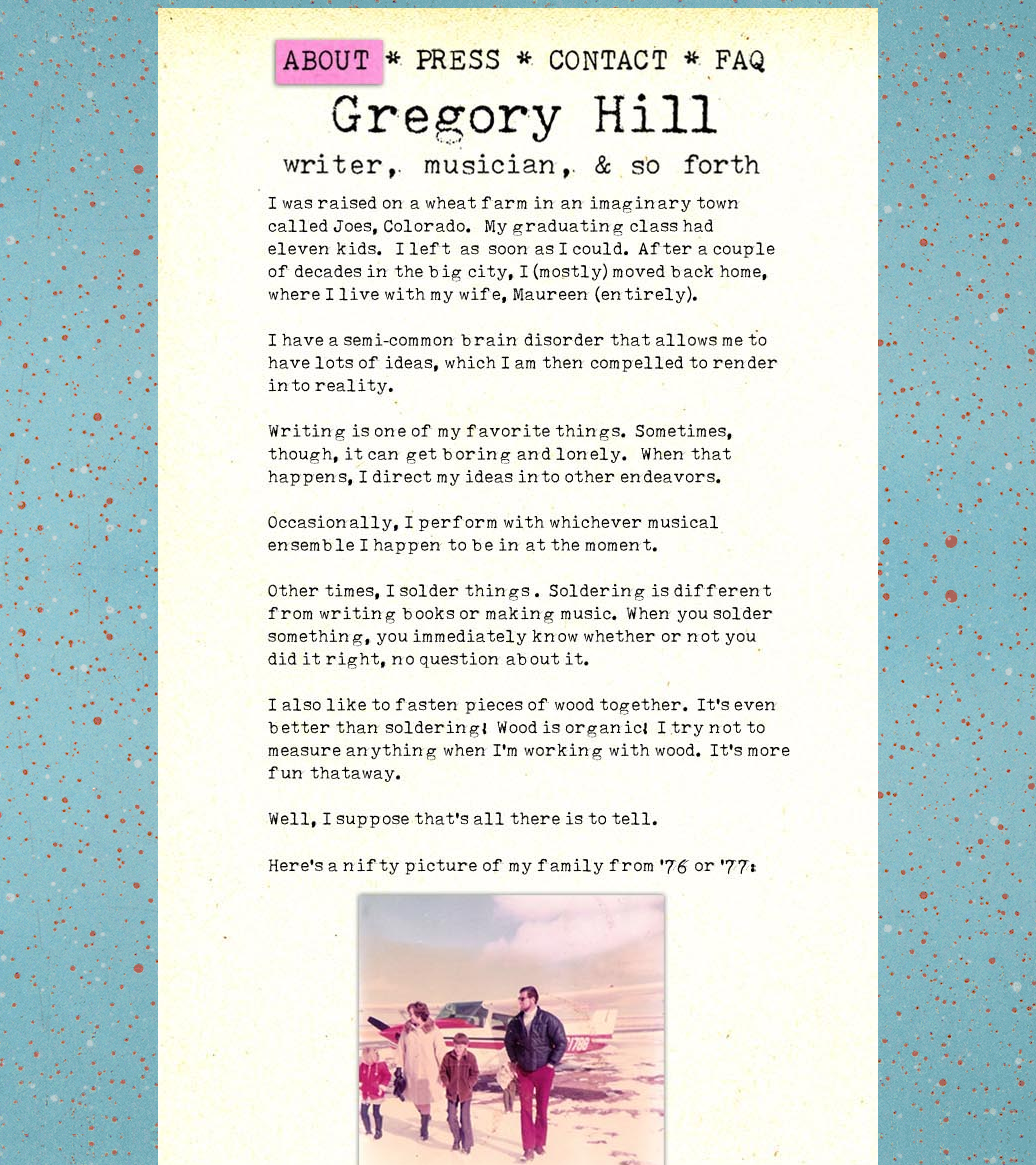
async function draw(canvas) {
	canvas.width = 1036;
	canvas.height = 1165;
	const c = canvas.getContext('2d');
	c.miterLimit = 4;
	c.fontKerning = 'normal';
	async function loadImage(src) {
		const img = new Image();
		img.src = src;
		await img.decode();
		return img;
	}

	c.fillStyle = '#fff';
	c.fillRect(0, 0, 1036, 1165);
	c.drawImage(await loadImage('img1.png'), 0, 0, 1036, 1165);
	c.drawImage(await loadImage('img2.png'), 158, 8, 720, 1157);
}

draw(document.querySelector('canvas'));
